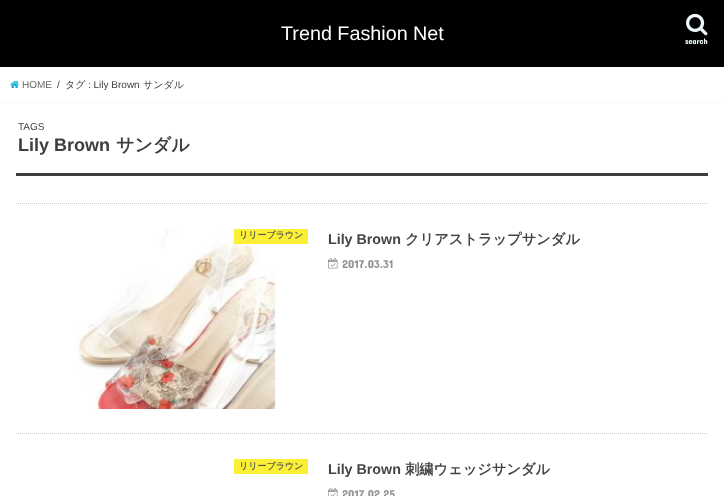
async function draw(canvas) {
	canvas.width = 724;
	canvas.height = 496;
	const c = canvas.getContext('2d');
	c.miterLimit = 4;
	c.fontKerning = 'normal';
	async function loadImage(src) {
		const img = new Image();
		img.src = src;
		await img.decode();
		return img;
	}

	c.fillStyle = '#fff';
	c.fillRect(0, 0, 724, 496);
	c.fillStyle = '#000';
	c.fillRect(0, 0, 724, 67);
	c.font = '19.75px Liberation Sans';
	c.fillStyle = '#fff';
	c.fillText('Trend Fashion Net', 281, 40);
	c.drawImage(await loadImage('img1.png'), 686, 13, 22, 23);
	c.font = '8px Concert One';
	c.fillStyle = '#edf9fc';
	c.fillText('search', 685, 44);
	c.fillStyle = '#f7f7f7';
	c.fillRect(0, 102, 724, 1);
	c.drawImage(await loadImage('img2.png'), 10, 80, 10, 8);
	c.font = '10px Liberation Sans';
	c.fillStyle = '#666';
	c.fillText('HOME', 22, 88);
	c.fillStyle = '#3e3e3e';
	c.fillText('/', 57, 88);
	c.font = '500 10px WenQuanYi Zen Hei';
	c.fillText('タグ', 65, 88);
	c.font = '10px Liberation Sans';
	c.fillText(': Lily Brown', 88, 88);
	c.font = '500 10px WenQuanYi Zen Hei';
	c.fillText('サンダル', 143, 88);
	c.fillStyle = '#ddd';
	c.filter = 'blur(0.5px)';
	c.beginPath();
	c.rect(0, 103, 724, 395);
	c.fill();
	c.filter = 'none';
	c.fillStyle = '#fff';
	c.fillRect(0, 103, 724, 393);
	c.fillStyle = '#3e3e3e';
	c.fillRect(16, 173, 692, 3);
	c.font = '10px Liberation Sans';
	c.fillText('TAGS', 18, 130);
	c.font = 'bold 18px Liberation Sans';
	c.fillText('Lily Brown', 18, 151);
	c.font = 'bold 18px WenQuanYi Zen Hei';
	c.fillText('サンダル', 116, 151);
	c.beginPath();
	c.moveTo(16, 203.5);
	c.lineTo(708, 203.5);
	c.strokeStyle = '#ccc';
	c.setLineDash([1, 1]);
	c.stroke();
	c.beginPath();
	c.moveTo(16, 433.5);
	c.lineTo(708, 433.5);
	c.stroke();
	c.drawImage(await loadImage('img3.png'), 76, 229, 200, 180);
	c.fillStyle = '#fcee21e6';
	c.fillRect(234, 229, 74, 15);
	c.font = 'bold 9px WenQuanYi Zen Hei';
	c.fillStyle = '#575757';
	c.fillText('リリーブラウン', 239, 238);
	c.font = 'bold 14.25px Liberation Sans';
	c.fillStyle = '#444';
	c.fillText('Lily Brown', 328, 244);
	c.font = 'bold 14.25px WenQuanYi Zen Hei';
	c.fillText('クリアストラップサンダル', 405, 244);
	c.drawImage(await loadImage('img4.png'), 328, 258, 10, 11);
	c.font = '11.5px Concert One';
	c.fillStyle = '#949494';
	c.fillText('2017.03.31', 342, 268);
	c.fillStyle = '#fcf037';
	c.fillRect(234, 459, 74, 15);
	c.font = 'bold 9px WenQuanYi Zen Hei';
	c.fillStyle = '#575757';
	c.fillText('リリーブラウン', 239, 469);
	c.font = 'bold 14.25px Liberation Sans';
	c.fillStyle = '#444';
	c.fillText('Lily Brown', 328, 474);
	c.font = 'bold 14.25px WenQuanYi Zen Hei';
	c.fillText('刺繍ウェッジサンダル', 405, 474);
	c.drawImage(await loadImage('img5.png'), 328, 488, 10, 8);
	c.font = '11.5px Concert One';
	c.fillStyle = '#949494';
	c.fillText('2017.02.25', 342, 498);
}

draw(document.querySelector('canvas'));
